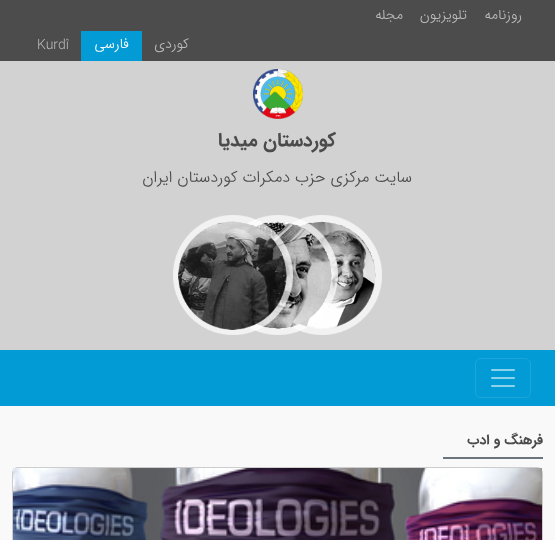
async function draw(canvas) {
	canvas.width = 555;
	canvas.height = 540;
	const c = canvas.getContext('2d');
	c.miterLimit = 4;
	c.fontKerning = 'normal';
	async function loadImage(src) {
		const img = new Image();
		img.src = src;
		await img.decode();
		return img;
	}

	c.fillStyle = '#f9f9f9';
	c.fillRect(0, 0, 555, 540);
	c.fillStyle = '#4d4c4c';
	c.fillRect(0, 0, 555, 61);
	c.direction = 'rtl';
	c.font = '300 14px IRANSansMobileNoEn';
	c.fillStyle = '#bdbbbb';
	for (const [text, x, y] of [
		['روزنامە', 522, 19],
		['تلویزیون', 467, 19],
		['مجلە', 403, 19],
		['كوردی', 189, 48],
	]) {
		c.fillText(text, x, y);
	}
	c.fillStyle = '#039bd5';
	c.fillRect(81, 31, 61, 30);
	c.fillStyle = '#fff';
	c.fillText('فارسی', 129, 48);
	c.direction = 'ltr';
	c.font = '300 14px Roboto';
	c.fillStyle = '#bdbbbb';
	c.fillText('Kurdî', 37, 49);
	c.fillStyle = '#d2d2d2';
	c.fillRect(0, 61, 555, 289);
	c.drawImage(await loadImage('img1.png'), 253, 69, 50, 50);
	c.direction = 'rtl';
	c.font = 'bold 19.25px IRANSansMobileNoEn';
	c.fillStyle = '#4b4b4b';
	c.fillText('کوردستان میدیا', 336, 146);
	c.font = '300 16px IRANSansMobileNoEn';
	c.fillText('سایت مرکزی حزب دمکرات کوردستان ایران', 412, 182);
	c.drawImage(await loadImage('img4.png'), 290, 215, 92, 120);
	c.drawImage(await loadImage('img3.png'), 246, 215, 92, 120);
	c.drawImage(await loadImage('img2.png'), 173, 215, 120, 120);
	c.fillStyle = '#039bd5';
	c.fillRect(0, 350, 555, 56);
	c.beginPath();
	c.roundRect(475.5, 358.5, 55, 39, 5.5);
	c.strokeStyle = '#1ca5d9';
	c.stroke();
	c.drawImage(await loadImage('img5.png'), 491, 369, 24, 18);
	c.font = 'bold 14px IRANSansMobileNoEn';
	c.fillStyle = '#4b4b4b';
	c.fillText('فرهنگ و ادب', 543, 444);
	c.fillStyle = '#6c757d';
	c.fillRect(443, 457, 100, 2);
	c.beginPath();
	c.roundRect(12.5, 467.5, 530, 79, 5.5);
	c.strokeStyle = '#cdcdcd';
	c.stroke();
	c.drawImage(await loadImage('img6.png'), 13, 468, 529, 72);
}

draw(document.querySelector('canvas'));
